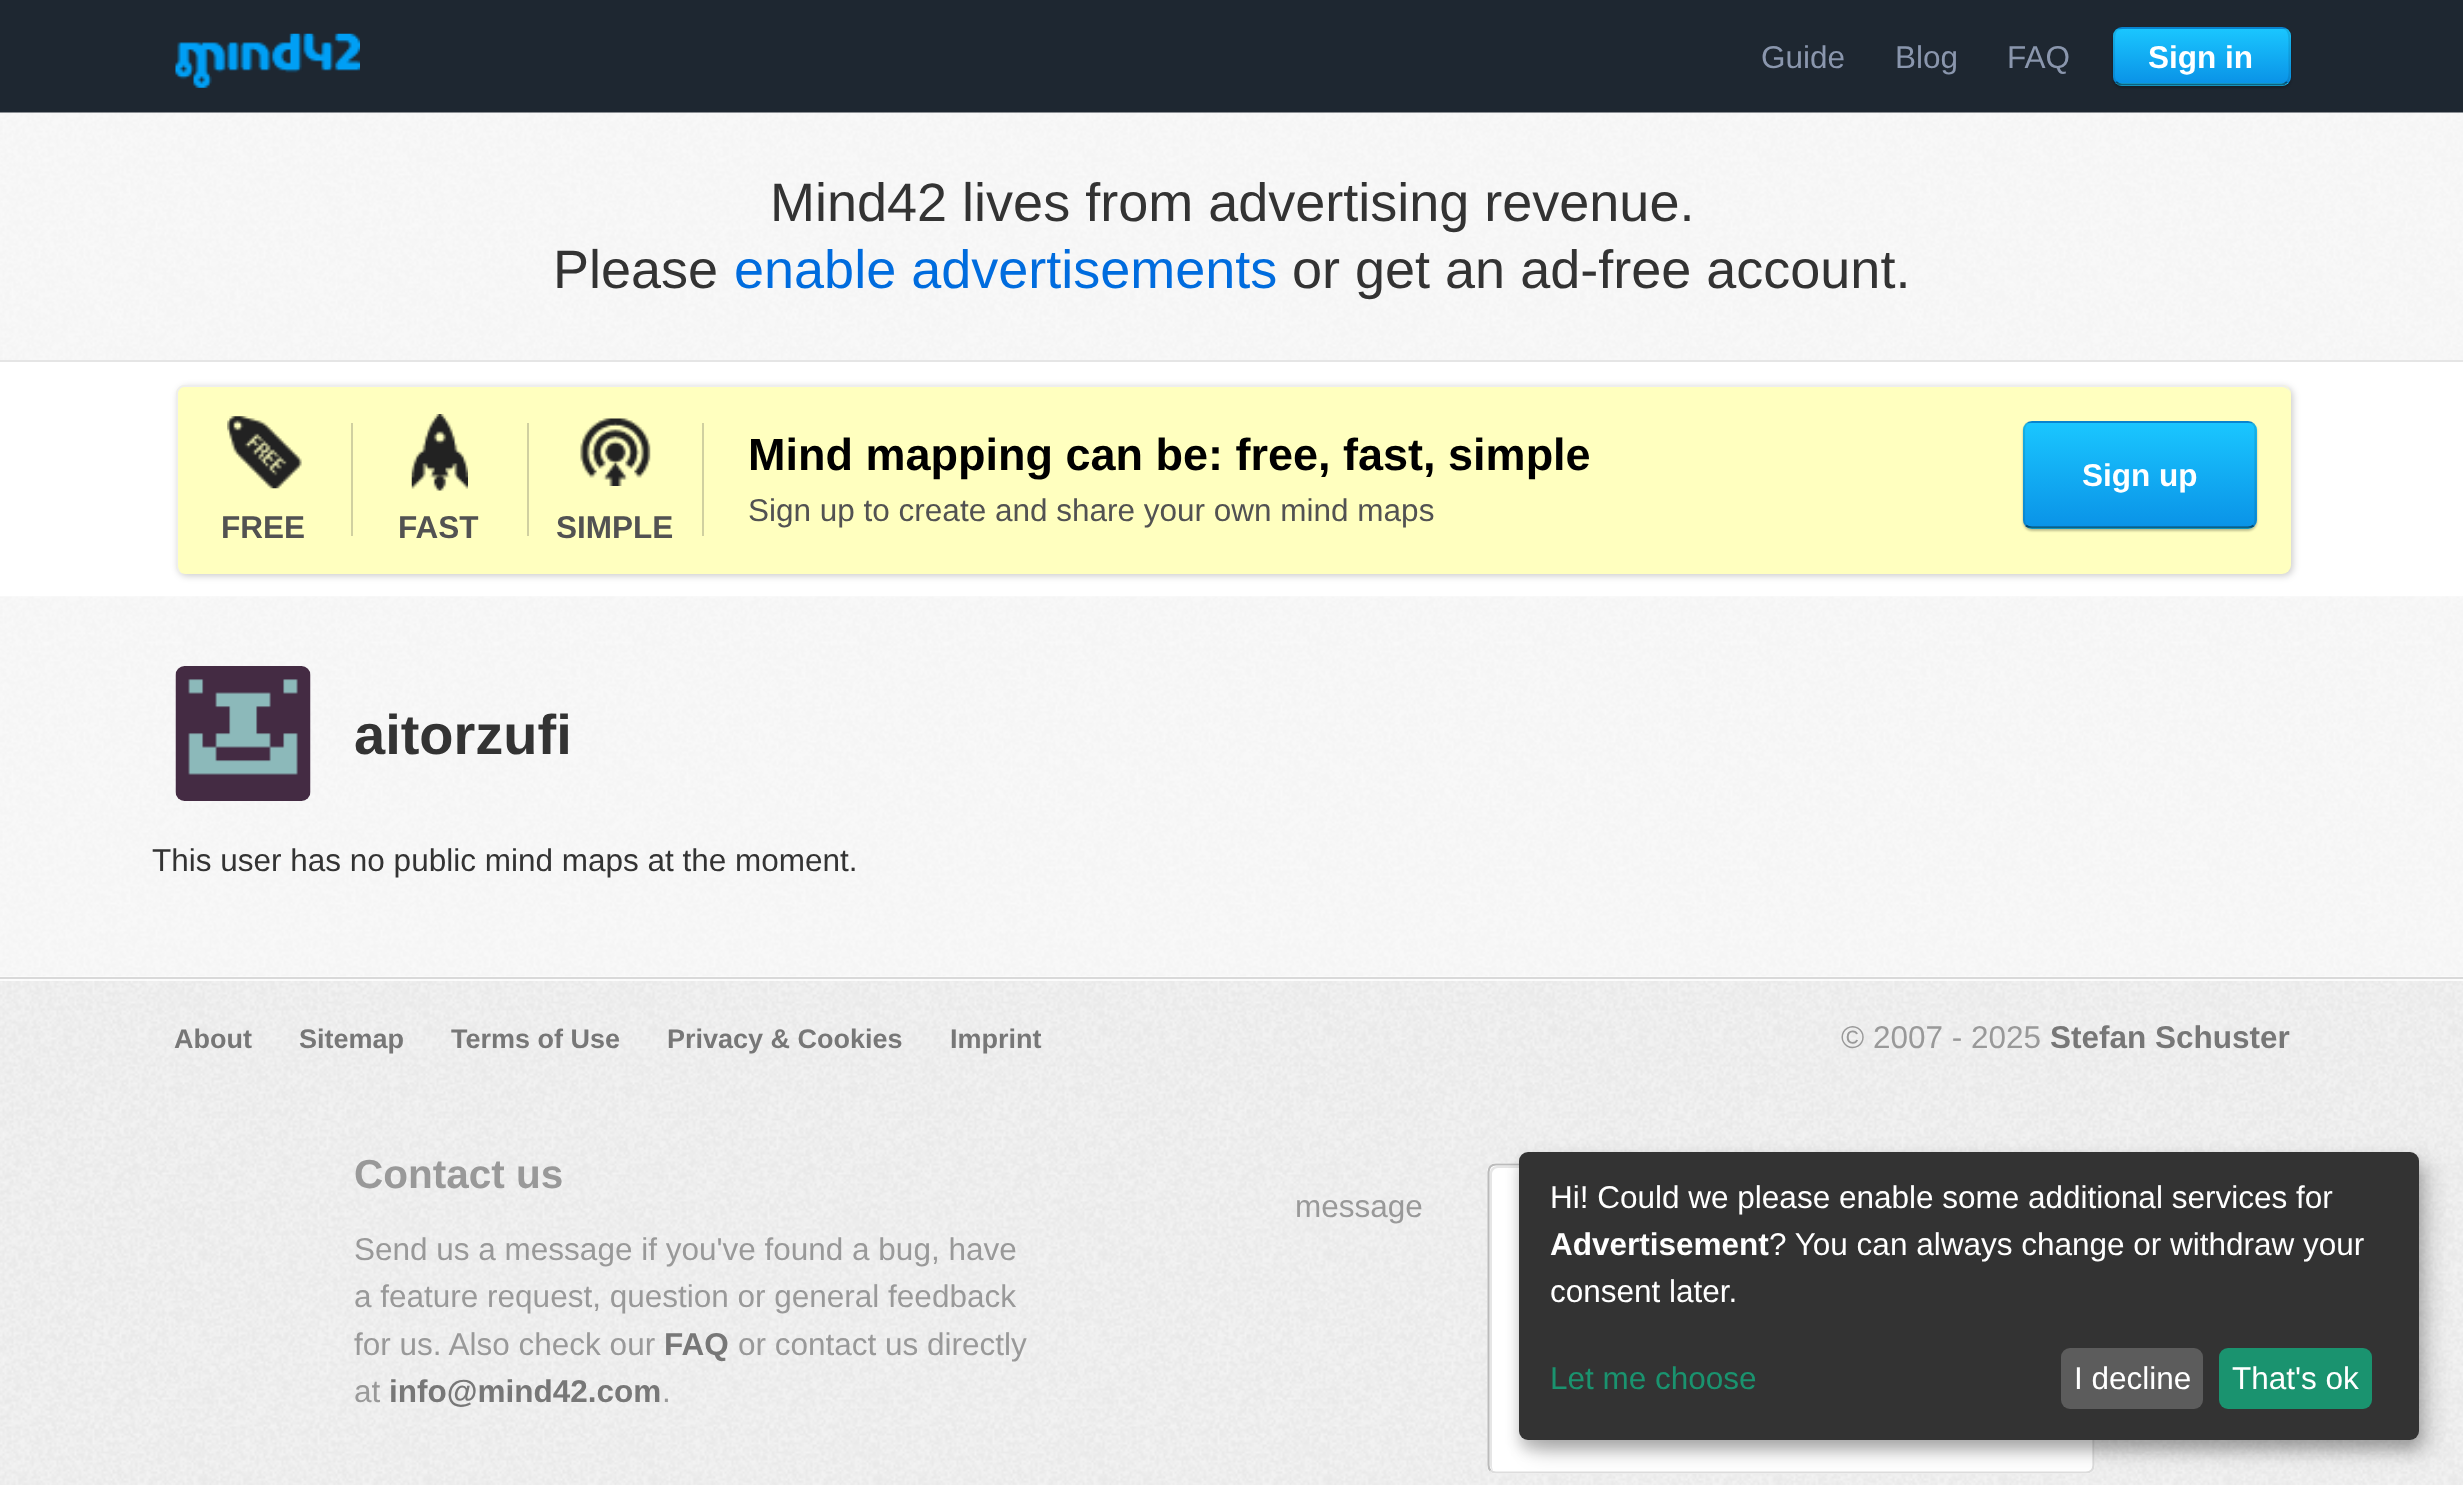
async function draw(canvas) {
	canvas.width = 2463;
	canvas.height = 1485;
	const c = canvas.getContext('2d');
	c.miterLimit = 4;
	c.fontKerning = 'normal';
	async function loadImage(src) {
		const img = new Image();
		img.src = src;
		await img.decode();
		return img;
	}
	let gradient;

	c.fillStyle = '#fff';
	c.fillRect(0, 0, 2463, 1485);
	c.drawImage(await loadImage('img1.png'), 0, 979, 2463, 506);
	c.fillStyle = '#1e2731';
	c.fillRect(0, 0, 2463, 113);
	c.drawImage(await loadImage('img2.png'), 175, 33, 185, 55);
	c.font = '31.5px Liberation Sans';
	c.fillStyle = '#8a96ad';
	for (const [text, x, y] of [
		['Guide', 1761, 68],
		['Blog', 1895, 68],
		['FAQ', 2007, 68],
	]) {
		c.fillText(text, x, y);
	}
	c.fillStyle = '#00000040';
	c.filter = 'blur(1px)';
	c.beginPath();
	c.roundRect(2113, 29, 178, 59, 9);
	c.fill();
	c.filter = 'none';
	c.save();
	c.beginPath();
	c.roundRect(2113, 27, 178, 59, 9);
	c.clip();
	gradient = c.createLinearGradient(2202, -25, 2202, 29);
	gradient.addColorStop(0, '#1ac6ff');
	gradient.addColorStop(1, '#0a93e7');
	c.fillStyle = gradient;
	c.fillRect(2113, 27, 178, 2);
	gradient = c.createLinearGradient(2202, 29, 2202, 83);
	gradient.addColorStop(0, '#1ac6ff');
	gradient.addColorStop(1, '#0a93e7');
	c.fillStyle = gradient;
	c.fillRect(2113, 29, 178, 54);
	gradient = c.createLinearGradient(2202, 83, 2202, 137);
	gradient.addColorStop(0, '#1ac6ff');
	gradient.addColorStop(1, '#0a93e7');
	c.fillStyle = gradient;
	c.fillRect(2113, 83, 178, 3);
	c.restore();
	c.beginPath();
	c.moveTo(2287, 82);
	c.bezierCurveTo(2285.5, 83.5, 2283.5, 84.5, 2281.5, 84.5);
	c.lineTo(2122, 84.5);
	c.bezierCurveTo(2119.5, 84.5, 2117.5, 83.5, 2116, 82);
	c.strokeStyle = '#00000080';
	c.lineWidth = 2.2;
	c.stroke();
	c.beginPath();
	c.moveTo(2116, 82);
	c.bezierCurveTo(2113, 79, 2114, 74, 2114, 70);
	c.lineTo(2114, 56);
	c.bezierCurveTo(2114, 22.5, 2111, 28, 2148.5, 28);
	c.lineTo(2281.5, 28);
	c.bezierCurveTo(2290, 28, 2289.5, 37, 2289.5, 43);
	c.lineTo(2289.5, 63);
	c.bezierCurveTo(2289.5, 68, 2291, 78, 2287, 82);
	c.strokeStyle = '#0000001a';
	c.stroke();
	c.font = 'bold 31.5px Liberation Sans';
	c.fillStyle = '#fff';
	c.fillText('Sign in', 2148, 68);
	c.drawImage(await loadImage('img3.png'), 0, 112, 2463, 248);
	c.fillStyle = '#e5e5e5';
	c.fillRect(0, 360, 2463, 2);
	c.font = '54px Liberation Sans';
	c.fillStyle = '#333';
	c.fillText('Mind42 lives from advertising revenue.', 770, 221);
	c.fillText('Please', 553, 288);
	c.fillStyle = '#006cde';
	c.fillText('enable advertisements', 734, 288);
	c.fillStyle = '#333';
	c.fillText('or get an ad-free account.', 1292, 288);
	c.fillStyle = '#d9d9d9';
	c.fillRect(0, 977, 2463, 2);
	c.fillStyle = '#00000033';
	c.filter = 'blur(3.5px)';
	c.beginPath();
	c.roundRect(178, 387, 2115, 189, 9);
	c.fill();
	c.filter = 'none';
	c.fillStyle = '#ffffbf';
	c.beginPath();
	c.roundRect(176, 385, 2115, 189, 9);
	c.fill();
	c.fillStyle = '#eee';
	c.beginPath();
	c.moveTo(184, 385);
	c.lineTo(2282, 385);
	c.bezierCurveTo(2286, 385, 2290, 389, 2290, 394);
	c.lineTo(2290, 565);
	c.bezierCurveTo(2290, 570, 2286, 574, 2282, 574);
	c.lineTo(184, 574);
	c.bezierCurveTo(180, 574, 176, 570, 176, 565);
	c.lineTo(176, 394);
	c.bezierCurveTo(176, 389, 180, 385, 184, 385);
	c.closePath();
	c.moveTo(184, 387);
	c.lineTo(2282, 387);
	c.bezierCurveTo(2286, 387, 2290, 390, 2290, 394);
	c.lineTo(2290, 565);
	c.bezierCurveTo(2290, 570, 2286, 574, 2282, 574);
	c.lineTo(184, 574);
	c.bezierCurveTo(181, 574, 178, 570, 178, 565);
	c.lineTo(178, 394);
	c.bezierCurveTo(178, 390, 181, 387, 184, 387);
	c.closePath();
	c.fill('evenodd');
	for (const [x, y, w, h, color] of [
		[351, 423, 2, 113, '#d0d0a0'],
		[527, 423, 2, 113, '#d0d0a0'],
		[702, 423, 2, 113, '#d0d0a0'],
	]) {
		c.fillStyle = color;
		c.fillRect(x, y, w, h);
	}
	c.font = 'bold 45px Liberation Sans';
	c.fillStyle = '#000';
	c.fillText('Mind mapping can be: free, fast, simple', 748, 470);
	c.font = '31.5px Liberation Sans';
	c.fillStyle = '#525252';
	c.fillText('Sign up to create and share your own mind maps', 748, 521);
	c.fillStyle = '#00000040';
	c.filter = 'blur(1px)';
	c.beginPath();
	c.roundRect(2023, 423, 234, 108, 9);
	c.fill();
	c.filter = 'none';
	c.save();
	c.beginPath();
	c.roundRect(2023, 421, 234, 108, 9);
	c.clip();
	gradient = c.createLinearGradient(2140, 320, 2140, 423);
	gradient.addColorStop(0, '#1ac6ff');
	gradient.addColorStop(1, '#0a93e7');
	c.fillStyle = gradient;
	c.fillRect(2023, 421, 234, 2);
	gradient = c.createLinearGradient(2140, 423, 2140, 527);
	gradient.addColorStop(0, '#1ac6ff');
	gradient.addColorStop(1, '#0a93e7');
	c.fillStyle = gradient;
	c.fillRect(2023, 423, 234, 104);
	gradient = c.createLinearGradient(2140, 527, 2140, 630);
	gradient.addColorStop(0, '#1ac6ff');
	gradient.addColorStop(1, '#0a93e7');
	c.fillStyle = gradient;
	c.fillRect(2023, 527, 234, 2);
	c.restore();
	c.beginPath();
	c.moveTo(2253.5, 525.5);
	c.bezierCurveTo(2252, 527, 2250, 527.5, 2248, 527.5);
	c.lineTo(2032, 527.5);
	c.bezierCurveTo(2029.5, 527.5, 2027.5, 527, 2026, 525.5);
	c.strokeStyle = '#00000080';
	c.stroke();
	c.beginPath();
	c.moveTo(2026, 525.5);
	c.bezierCurveTo(2024.5, 524, 2024, 522, 2024, 520);
	c.lineTo(2024, 430);
	c.bezierCurveTo(2024, 427.5, 2024.5, 425.5, 2026, 424);
	c.bezierCurveTo(2027.5, 422.5, 2029.5, 422, 2032, 422);
	c.lineTo(2248, 422);
	c.bezierCurveTo(2250, 422, 2252, 422.5, 2253.5, 424);
	c.bezierCurveTo(2255, 425.5, 2255.5, 427.5, 2255.5, 430);
	c.lineTo(2255.5, 520);
	c.bezierCurveTo(2255.5, 522, 2255, 524, 2253.5, 525.5);
	c.strokeStyle = '#0000001a';
	c.stroke();
	c.font = 'bold 31.5px Liberation Sans';
	c.fillStyle = '#fff';
	c.fillText('Sign up', 2082, 486);
	c.drawImage(await loadImage('img4.png'), 227, 416, 75, 73);
	c.fillStyle = '#525252';
	c.fillText('FREE', 221, 538);
	c.drawImage(await loadImage('img5.png'), 411, 414, 57, 77);
	c.fillText('FAST', 398, 538);
	c.drawImage(await loadImage('img6.png'), 580, 418, 71, 68);
	c.fillText('SIMPLE', 556, 538);
	c.drawImage(await loadImage('img7.png'), 0, 596, 2463, 381);
	c.drawImage(await loadImage('img8.png'), 175, 666, 136, 135);
	c.font = 'bold 56px Liberation Sans';
	c.fillStyle = '#333';
	c.fillText('aitorzufi', 354, 754);
	c.font = '31.5px Liberation Sans';
	c.fillText('This user has no public mind maps at the moment.', 152, 871);
	c.fillStyle = '#ffffffcc';
	c.fillRect(0, 979, 2463, 2);
	c.font = 'bold 27px Liberation Sans';
	c.fillStyle = '#777';
	for (const [text, x, y] of [
		['About', 174, 1048],
		['Sitemap', 299, 1048],
		['Terms of Use', 451, 1048],
		['Privacy & Cookies', 667, 1048],
		['Imprint', 950, 1048],
	]) {
		c.fillText(text, x, y);
	}
	c.font = '31.5px Liberation Sans';
	c.fillStyle = '#999';
	c.fillText('© 2007 - 2025', 1841, 1048);
	c.font = 'bold 31.5px Liberation Sans';
	c.fillStyle = '#777';
	c.fillText('Stefan Schuster', 2050, 1048);
	c.font = 'bold 40.5px Liberation Sans';
	c.fillStyle = '#999';
	c.fillText('Contact us', 354, 1188);
	c.font = '31.5px Liberation Sans';
	for (const [text, x, y] of [
		['Send us a message if you\'ve found a bug, have', 354, 1260],
		['a feature request, question or general feedback', 354, 1307],
		['for us. Also check our', 354, 1355],
	]) {
		c.fillText(text, x, y);
	}
	c.font = 'bold 31.5px Liberation Sans';
	c.fillStyle = '#777';
	c.fillText('FAQ', 664, 1355);
	c.font = '31.5px Liberation Sans';
	c.fillStyle = '#999';
	c.fillText('or contact us directly', 738, 1355);
	c.fillText('at', 354, 1402);
	c.font = 'bold 31.5px Liberation Sans';
	c.fillStyle = '#777';
	c.fillText('info@mind42.com', 389, 1402);
	c.font = '31.5px Liberation Sans';
	c.fillStyle = '#999';
	c.fillText('.', 662, 1402);
	c.fillText('message', 1295, 1217);
	c.fillStyle = '#fff';
	c.beginPath();
	c.roundRect(1487, 1163, 608, 311, 9);
	c.fill();
	c.fillStyle = '#e6e6e6';
	c.beginPath();
	c.moveTo(1498, 1168);
	c.lineTo(2088, 1168);
	c.lineTo(2092, 1169);
	c.bezierCurveTo(2090, 1167, 2088, 1166, 2086, 1166);
	c.lineTo(1497, 1166);
	c.bezierCurveTo(1493, 1166, 1490, 1169, 1490, 1173);
	c.lineTo(1490, 1465);
	c.bezierCurveTo(1490, 1467, 1491, 1469, 1493, 1471);
	c.lineTo(1492, 1467);
	c.lineTo(1492, 1174);
	c.bezierCurveTo(1492, 1171, 1495, 1168, 1498, 1168);
	c.closePath();
	c.fill();
	c.beginPath();
	c.moveTo(2091.5, 1166.5);
	c.bezierCurveTo(2093, 1168, 2093.5, 1170, 2093.5, 1172);
	c.lineTo(2093.5, 1465);
	c.bezierCurveTo(2093.5, 1467, 2093, 1469, 2091.5, 1470.5);
	c.bezierCurveTo(2090, 1472, 2088, 1472.5, 2086, 1472.5);
	c.lineTo(1496, 1472.5);
	c.bezierCurveTo(1494, 1472.5, 1492, 1472, 1490.5, 1470.5);
	c.strokeStyle = '#ddd';
	c.stroke();
	c.beginPath();
	c.moveTo(1490.5, 1470.5);
	c.bezierCurveTo(1489, 1469, 1488.5, 1467, 1488.5, 1465);
	c.lineTo(1488.5, 1172);
	c.bezierCurveTo(1488.5, 1170, 1489, 1168, 1490.5, 1166.5);
	c.bezierCurveTo(1492, 1165, 1494, 1164.5, 1496, 1164.5);
	c.lineTo(2086, 1164.5);
	c.bezierCurveTo(2088, 1164.5, 2090, 1165, 2091.5, 1166.5);
	c.strokeStyle = '#bbb';
	c.stroke();
	c.fillStyle = '#00000030';
	c.filter = 'blur(11px)';
	c.beginPath();
	c.roundRect(1530, 1163, 900, 288, 9);
	c.fill();
	c.filter = 'none';
	c.fillStyle = '#00000033';
	c.filter = 'blur(7px)';
	c.beginPath();
	c.roundRect(1519, 1161, 900, 288, 9);
	c.fill();
	c.filter = 'none';
	c.fillStyle = '#333';
	c.beginPath();
	c.roundRect(1519, 1152, 900, 288, 9);
	c.fill();
	c.fillStyle = '#fff';
	c.fillText('Hi! Could we please enable some additional services for', 1550, 1208);
	c.font = 'bold 31.5px Liberation Sans';
	c.fillText('Advertisement', 1550, 1255);
	c.font = '31.5px Liberation Sans';
	c.fillText('? You can always change or withdraw your', 1769, 1255);
	c.fillText('consent later.', 1550, 1302);
	c.fillStyle = '#1a936f';
	c.fillText('Let me choose', 1550, 1389);
	c.fillStyle = '#5c5c5c';
	c.beginPath();
	c.roundRect(2061, 1348, 142, 61, 9);
	c.fill();
	c.fillStyle = '#fff';
	c.fillText('I decline', 2074, 1389);
	c.fillStyle = '#1a936f';
	c.beginPath();
	c.roundRect(2219, 1348, 153, 61, 9);
	c.fill();
	c.fillStyle = '#fff';
	c.fillText('That\'s ok', 2232, 1389);
}

draw(document.querySelector('canvas'));
